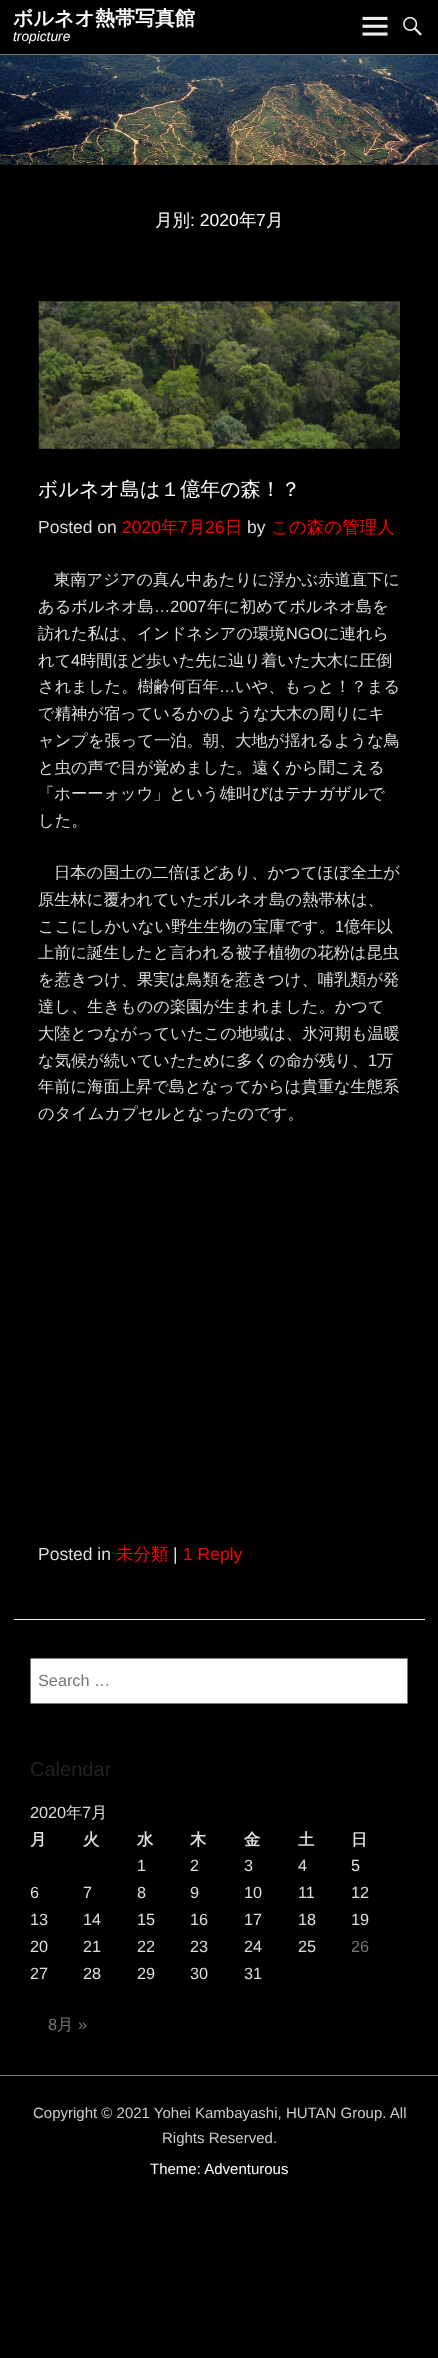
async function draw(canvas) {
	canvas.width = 438;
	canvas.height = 2358;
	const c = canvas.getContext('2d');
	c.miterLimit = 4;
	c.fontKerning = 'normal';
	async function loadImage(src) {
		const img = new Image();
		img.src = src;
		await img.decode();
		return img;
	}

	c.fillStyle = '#000';
	c.fillRect(0, 0, 438, 2358);
	c.fillStyle = '#777';
	c.fillRect(0, 54, 438, 1);
	c.font = 'bold 20px WenQuanYi Zen Hei';
	c.fillStyle = '#fff';
	c.fillText('ボルネオ熱帯写真館', 13, 25);
	c.font = 'italic 13.75px Liberation Sans';
	c.fillText('tropicture', 13, 41);
	c.drawImage(await loadImage('img1.png'), 362, 16, 26, 20);
	c.drawImage(await loadImage('img2.png'), 403, 16, 19, 20);
	c.drawImage(await loadImage('img3.png'), 0, 55, 438, 110);
	c.fillStyle = '#eee';
	c.fillRect(14, 1619, 411, 1);
	c.font = '500 17.5px WenQuanYi Zen Hei';
	c.fillStyle = '#fff';
	c.fillText('月別', 155, 226);
	c.font = '17.5px Liberation Sans';
	c.fillText(': 2020', 190, 226);
	c.font = '500 17.5px WenQuanYi Zen Hei';
	c.fillText('年', 239, 226);
	c.font = '17.5px Liberation Sans';
	c.fillText('7', 256, 226);
	c.font = '500 17.5px WenQuanYi Zen Hei';
	c.fillText('月', 266, 226);
	c.drawImage(await loadImage('img4.png'), 38, 301, 362, 148);
	c.font = '500 20px WenQuanYi Zen Hei';
	c.fillText('ボルネオ島は１億年の森！？', 38, 496);
	c.font = '17.5px Liberation Sans';
	c.fillStyle = '#ddd';
	c.fillText('Posted on', 38, 533);
	c.fillStyle = '#f00';
	c.fillText('2020', 122, 533);
	c.font = '500 17.5px WenQuanYi Zen Hei';
	c.fillText('年', 161, 533);
	c.font = '17.5px Liberation Sans';
	c.fillText('7', 178, 533);
	c.font = '500 17.5px WenQuanYi Zen Hei';
	c.fillText('月', 188, 533);
	c.font = '17.5px Liberation Sans';
	c.fillText('26', 205, 533);
	c.font = '500 17.5px WenQuanYi Zen Hei';
	c.fillText('日', 225, 533);
	c.font = '17.5px Liberation Sans';
	c.fillStyle = '#ddd';
	c.fillText('by', 247, 533);
	c.font = '500 17.5px WenQuanYi Zen Hei';
	c.fillStyle = '#f00';
	c.fillText('この森の管理人', 271, 533);
	c.font = '500 16.25px WenQuanYi Zen Hei';
	c.fillStyle = '#ddd';
	c.fillText('東南アジアの真ん中あたりに浮かぶ赤道直下に', 54, 585);
	c.fillText('あるボルネオ島', 38, 612);
	c.font = '16.25px Liberation Sans';
	c.fillText('…2007', 154, 612);
	c.font = '500 16.25px WenQuanYi Zen Hei';
	c.fillText('年に初めてボルネオ島を', 207, 612);
	c.fillText('訪れた私は、インドネシアの環境', 38, 639);
	c.font = '16.25px Liberation Sans';
	c.fillText('NGO', 286, 639);
	c.font = '500 16.25px WenQuanYi Zen Hei';
	c.fillText('に連れら', 323, 639);
	c.fillText('れて', 38, 666);
	c.font = '16.25px Liberation Sans';
	c.fillText('4', 71, 666);
	c.font = '500 16.25px WenQuanYi Zen Hei';
	c.fillText('時間ほど歩いた先に辿り着いた大木に圧倒', 80, 666);
	c.fillText('されました。樹齢何百年', 38, 692);
	c.font = '16.25px Liberation Sans';
	c.fillText('…', 219, 692);
	c.font = '500 16.25px WenQuanYi Zen Hei';
	for (const [text, x, y] of [
		['いや、もっと！？まる', 235, 692],
		['で精神が宿っているかのような大木の周りにキ', 38, 719],
		['ャンプを張って一泊。朝、大地が揺れるような鳥', 38, 746],
		['と虫の声で目が覚めました。遠くから聞こえる', 38, 773],
		['「ホーーォッウ」という雄叫びはテナガザルで', 38, 799],
		['した。', 38, 826],
		['日本の国土の二倍ほどあり、かつてほぼ全土が', 54, 878],
		['原生林に覆われていたボルネオ島の熱帯林は、', 38, 905],
		['ここにしかいない野生生物の宝庫です。', 38, 932],
	]) {
		c.fillText(text, x, y);
	}
	c.font = '16.25px Liberation Sans';
	c.fillText('1', 335, 932);
	c.font = '500 16.25px WenQuanYi Zen Hei';
	for (const [text, x, y] of [
		['億年以', 344, 932],
		['上前に誕生したと言われる被子植物の花粉は昆虫', 38, 958],
		['を惹きつけ、果実は鳥類を惹きつけ、哺乳類が発', 38, 985],
		['達し、生きものの楽園が生まれました。かつて', 38, 1012],
		['大陸とつながっていたこの地域は、氷河期も温暖', 38, 1039],
		['な気候が続いていたために多くの命が残り、', 38, 1066],
	]) {
		c.fillText(text, x, y);
	}
	c.font = '16.25px Liberation Sans';
	c.fillText('1', 368, 1066);
	c.font = '500 16.25px WenQuanYi Zen Hei';
	for (const [text, x, y] of [
		['万', 377, 1066],
		['年前に海面上昇で島となってからは貴重な生態系', 38, 1092],
		['のタイムカプセルとなったのです。', 38, 1119],
	]) {
		c.fillText(text, x, y);
	}
	c.font = '17.5px Liberation Sans';
	c.fillText('Posted in', 38, 1560);
	c.font = '500 17.5px WenQuanYi Zen Hei';
	c.fillStyle = '#f00';
	c.fillText('未分類', 116, 1560);
	c.font = '17.5px Liberation Sans';
	c.fillStyle = '#ddd';
	c.fillText('|', 173, 1560);
	c.fillStyle = '#f00';
	c.fillText('1 Reply', 183, 1560);
	c.fillStyle = '#fff';
	c.beginPath();
	c.rect(30.5, 1658.5, 377, 45);
	c.fill();
	c.strokeStyle = '#777';
	c.stroke();
	c.font = '16.25px Liberation Sans';
	c.fillStyle = '#757575';
	c.fillText('Search …', 38, 1686);
	c.font = '20px Liberation Sans';
	c.fillStyle = '#222';
	c.fillText('Calendar', 30, 1776);
	c.font = '16.25px Liberation Sans';
	c.fillStyle = '#ddd';
	c.fillText('2020', 30, 1818);
	c.font = '500 16.25px WenQuanYi Zen Hei';
	c.fillText('年', 66, 1818);
	c.font = '16.25px Liberation Sans';
	c.fillText('7', 82, 1818);
	c.font = '500 16.25px WenQuanYi Zen Hei';
	c.fillText('月', 91, 1818);
	c.font = 'bold 16.25px WenQuanYi Zen Hei';
	for (const [text, x, y] of [
		['月', 30, 1845],
		['火', 83, 1845],
		['水', 137, 1845],
		['木', 190, 1845],
		['金', 244, 1845],
		['土', 298, 1845],
		['日', 351, 1845],
	]) {
		c.fillText(text, x, y);
	}
	c.font = '16.25px Liberation Sans';
	for (const [text, x, y] of [
		['1', 137, 1871],
		['2', 190, 1871],
		['3', 244, 1871],
		['4', 298, 1871],
		['5', 351, 1871],
		['6', 30, 1898],
		['7', 83, 1898],
		['8', 137, 1898],
		['9', 190, 1898],
		['10', 244, 1898],
		['11', 298, 1898],
		['12', 351, 1898],
		['13', 30, 1925],
		['14', 83, 1925],
		['15', 137, 1925],
		['16', 190, 1925],
		['17', 244, 1925],
		['18', 298, 1925],
		['19', 351, 1925],
		['20', 30, 1952],
		['21', 83, 1952],
		['22', 137, 1952],
		['23', 190, 1952],
		['24', 244, 1952],
		['25', 298, 1952],
	]) {
		c.fillText(text, x, y);
	}
	c.fillStyle = '#757575';
	c.fillText('26', 351, 1952);
	c.fillStyle = '#ddd';
	for (const [text, x, y] of [
		['27', 30, 1979],
		['28', 83, 1979],
		['29', 137, 1979],
		['30', 190, 1979],
		['31', 244, 1979],
	]) {
		c.fillText(text, x, y);
	}
	c.fillStyle = '#757575';
	c.fillText('8', 48, 2030);
	c.font = '500 16.25px WenQuanYi Zen Hei';
	c.fillText('月', 57, 2030);
	c.font = '16.25px Liberation Sans';
	c.fillText('»', 78, 2030);
	c.fillStyle = '#777';
	c.fillRect(0, 2075, 438, 1);
	c.font = '15px Liberation Sans';
	c.fillStyle = '#ccc';
	c.fillText('Copyright © 2021 Yohei Kambayashi, HUTAN Group. All', 33, 2118);
	c.fillText('Rights Reserved.', 162, 2143);
	c.fillStyle = '#fff';
	c.fillText('Theme: Adventurous', 150, 2174);
}

draw(document.querySelector('canvas'));
